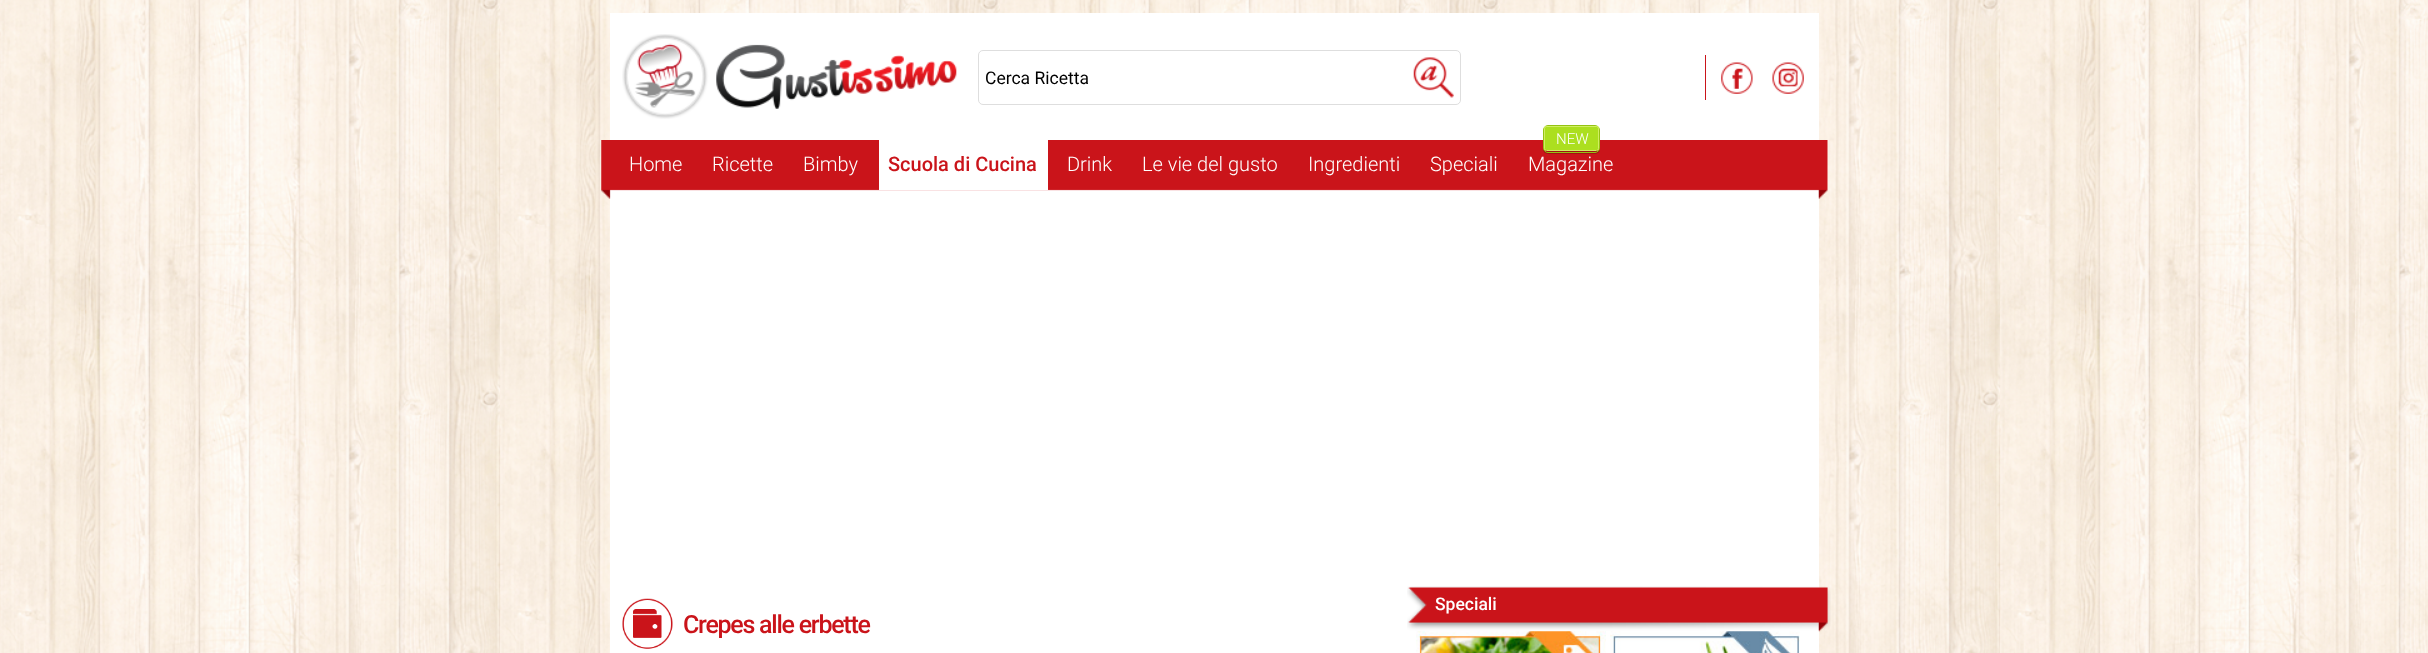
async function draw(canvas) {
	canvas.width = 2428;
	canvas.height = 653;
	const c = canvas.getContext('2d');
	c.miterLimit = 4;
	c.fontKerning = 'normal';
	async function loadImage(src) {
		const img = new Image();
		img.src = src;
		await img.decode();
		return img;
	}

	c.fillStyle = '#fff';
	c.fillRect(0, 0, 2428, 653);
	c.drawImage(await loadImage('img1.png'), 0, 0, 2428, 653);
	c.fillRect(610, 13, 1209, 640);
	c.drawImage(await loadImage('img2.png'), 622, 34, 335, 85);
	c.beginPath();
	c.roundRect(978.5, 50.5, 482, 54, 4.5);
	c.strokeStyle = '#dedede';
	c.stroke();
	c.font = '17.5px Roboto';
	c.fillStyle = '#000';
	c.fillText('Cerca Ricetta', 985, 84);
	c.drawImage(await loadImage('img3.png'), 1413, 57, 41, 41);
	c.fillStyle = '#ca141a';
	c.fillRect(1705, 55, 1, 45);
	c.drawImage(await loadImage('img4.png'), 1721, 62, 32, 32);
	c.drawImage(await loadImage('img5.png'), 1772, 62, 32, 32);
	c.drawImage(await loadImage('img6.png'), 601, 140, 1227, 59);
	c.font = '300 20px Roboto';
	c.fillStyle = '#fff';
	for (const [text, x, y] of [
		['Home', 629, 171],
		['Ricette', 712, 171],
		['Bimby', 803, 171],
	]) {
		c.fillText(text, x, y);
	}
	c.fillRect(879, 140, 169, 50);
	c.font = '500 20px Roboto';
	c.fillStyle = '#ca141a';
	c.fillText('Scuola di Cucina', 888, 171);
	c.font = '300 20px Roboto';
	c.fillStyle = '#fff';
	for (const [text, x, y] of [
		['Drink', 1067, 171],
		['Le vie del gusto', 1142, 171],
		['Ingredienti', 1308, 171],
		['Speciali', 1430, 171],
	]) {
		c.fillText(text, x, y);
	}
	c.fillStyle = '#00000033';
	c.filter = 'blur(0.5px)';
	c.beginPath();
	c.roundRect(1543, 126, 57, 28, 5);
	c.fill();
	c.filter = 'none';
	c.beginPath();
	c.roundRect(1543.5, 125.5, 56, 27, 4.5);
	c.strokeStyle = '#94c312';
	c.stroke();
	c.save();
	c.beginPath();
	c.roundRect(1544, 126, 55, 25, 2.5);
	c.clip();
	c.fillStyle = '#acdf1f';
	c.fillRect(1544, 126, 55, 2);
	c.restore();
	c.fillStyle = '#acdf1f';
	c.fillRect(1544, 128, 55, 22);
	c.beginPath();
	c.roundRect(1544.5, 126.5, 54, 24, 2);
	c.strokeStyle = '#d1ee63';
	c.stroke();
	c.font = '300 15px Roboto';
	c.fillStyle = '#fff';
	c.fillText('NEW', 1556, 144);
	c.font = '300 20px Roboto';
	c.fillText('Magazine', 1528, 171);
	c.drawImage(await loadImage('img8.png'), 1416, 631, 190, 22);
	c.drawImage(await loadImage('img9.png'), 1610, 631, 190, 22);
	c.drawImage(await loadImage('img7.png'), 1407, 586, 424, 46);
	c.font = '500 17.5px Roboto';
	c.fillText('Speciali', 1435, 610);
	c.drawImage(await loadImage('img10.png'), 622, 598, 51, 51);
	c.letterSpacing = '-1.25px';
	c.font = '500 25px Roboto';
	c.fillStyle = '#ca141a';
	c.fillText('Crepes alle erbette', 683, 633);
}

draw(document.querySelector('canvas'));
